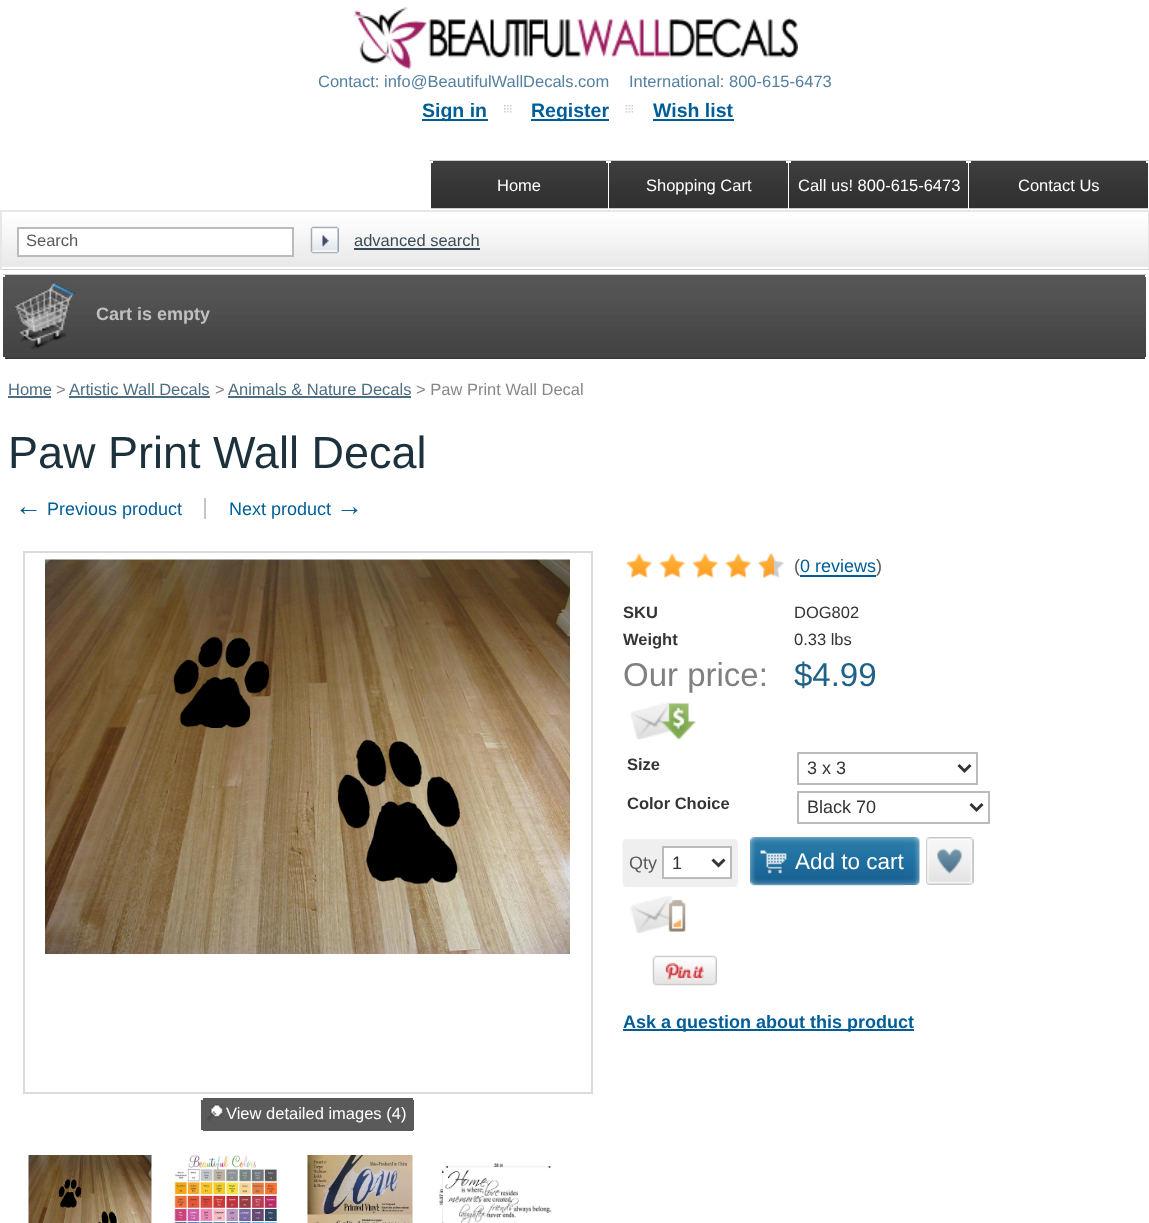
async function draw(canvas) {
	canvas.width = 1149;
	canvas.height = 1223;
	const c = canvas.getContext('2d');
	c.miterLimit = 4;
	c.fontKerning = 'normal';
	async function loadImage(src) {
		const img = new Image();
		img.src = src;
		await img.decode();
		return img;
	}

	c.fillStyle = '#fff';
	c.fillRect(0, 0, 1149, 1223);
	c.drawImage(await loadImage('img1.png'), 353, 7, 445, 63);
	c.font = '16.5px Liberation Sans';
	c.fillStyle = '#5480a2';
	c.fillText('Contact: info@BeautifulWallDecals.com', 318, 87);
	c.fillText('International: 800-615-6473', 629, 87);
	c.drawImage(await loadImage('img2.png'), 504, 105, 8, 8);
	c.fillStyle = '#005d98';
	c.fillRect(422, 119, 66, 2);
	c.font = 'bold 19.5px Liberation Sans';
	c.fillText('Sign in', 422, 117);
	c.drawImage(await loadImage('img3.png'), 625, 105, 8, 8);
	c.fillRect(531, 119, 78, 2);
	c.fillText('Register', 531, 117);
	c.fillText('Wish list', 653, 117);
	c.fillRect(653, 119, 81, 2);
	c.drawImage(await loadImage('img4.png'), 429, 160, 180, 49);
	c.fillStyle = '#fff';
	c.fillRect(429, 161, 2, 48);
	c.fillRect(431, 161, 2, 2);
	c.font = '16.5px Liberation Sans';
	c.fillText('Home', 497, 191);
	c.fillRect(606, 161, 2, 2);
	c.fillRect(608, 161, 1, 48);
	c.drawImage(await loadImage('img5.png'), 609, 160, 180, 49);
	c.fillRect(609, 161, 2, 2);
	c.fillText('Shopping Cart', 646, 191);
	c.fillRect(786, 161, 2, 2);
	c.fillRect(788, 161, 1, 48);
	c.drawImage(await loadImage('img6.png'), 789, 160, 180, 49);
	c.fillRect(789, 161, 2, 2);
	c.fillText('Call us! 800-615-6473', 798, 191);
	c.fillRect(966, 161, 2, 2);
	c.fillRect(968, 161, 1, 48);
	c.drawImage(await loadImage('img7.png'), 969, 160, 180, 49);
	c.fillRect(969, 161, 2, 2);
	c.fillText('Contact Us', 1018, 191);
	c.fillRect(1146, 161, 2, 2);
	c.fillRect(1148, 161, 1, 48);
	c.drawImage(await loadImage('img8.png'), 2, 212, 1146, 55);
	for (const [x, y, w, h, color] of [
		[0, 210, 1149, 2, '#e7e7e7'],
		[1148, 210, 1, 60, '#e7e7e7'],
		[0, 269, 1149, 1, '#d0d0d0'],
		[0, 210, 2, 60, '#e7e7e7'],
	]) {
		c.fillStyle = color;
		c.fillRect(x, y, w, h);
	}
	c.fillStyle = '#fff';
	c.beginPath();
	c.rect(18, 228, 275, 28);
	c.fill();
	c.strokeStyle = '#bbb';
	c.lineWidth = 2;
	c.stroke();
	c.fillStyle = '#58595b';
	c.fillText('Search', 26, 246);
	c.drawImage(await loadImage('img9.png'), 310, 226, 29, 28);
	c.fillStyle = '#394b57';
	c.fillText('advanced search', 354, 246);
	c.fillRect(354, 248, 126, 2);
	c.fillStyle = '#2d2d2d';
	c.fillRect(5, 358, 1140, 1);
	c.drawImage(await loadImage('img10.png'), 3, 274, 1143, 85);
	c.fillStyle = '#fff';
	c.fillRect(3, 275, 2, 2);
	c.fillRect(1145, 275, 2, 2);
	c.drawImage(await loadImage('img11.png'), 15, 282, 60, 67);
	c.font = 'bold 18px Liberation Sans';
	c.fillStyle = '#c0c0c0';
	c.fillText('Cart is empty', 96, 320);
	c.fillStyle = '#fff';
	c.fillRect(3, 357, 2, 2);
	c.fillRect(1145, 357, 2, 2);
	c.font = '16.5px Liberation Sans';
	c.fillStyle = '#4c6d82';
	c.fillText('Home', 8, 395);
	c.fillRect(8, 396, 43, 2);
	c.fillStyle = '#888';
	c.fillText('>', 56, 395);
	c.fillStyle = '#4c6d82';
	c.fillText('Artistic Wall Decals', 69, 395);
	c.fillRect(69, 396, 141, 2);
	c.fillStyle = '#888';
	c.fillText('>', 215, 395);
	c.fillStyle = '#4c6d82';
	c.fillText('Animals & Nature Decals', 228, 395);
	c.fillRect(228, 396, 183, 2);
	c.fillStyle = '#888';
	c.fillText('> Paw Print Wall Decal', 416, 395);
	c.font = '45px Liberation Sans';
	c.fillStyle = '#1d313d';
	c.fillText('Paw Print Wall Decal', 8, 468);
	c.font = '27px Liberation Sans';
	c.fillStyle = '#005d98';
	c.fillText('←', 15, 515);
	c.font = '18px Liberation Sans';
	c.fillText('Previous product', 47, 515);
	c.fillStyle = '#c5c5c5';
	c.fillRect(204, 498, 2, 21);
	c.fillStyle = '#005d98';
	c.fillText('Next product', 229, 515);
	c.font = '27px Liberation Sans';
	c.fillText('→', 336, 515);
	c.drawImage(await loadImage('img12.png'), 625, 553, 28, 25);
	c.drawImage(await loadImage('img12.png'), 658, 553, 28, 25);
	c.drawImage(await loadImage('img12.png'), 691, 553, 28, 25);
	c.drawImage(await loadImage('img13.png'), 725, 553, 27, 25);
	c.drawImage(await loadImage('img14.png'), 758, 553, 27, 25);
	c.drawImage(await loadImage('img15.png'), 757, 553, 17, 25);
	c.font = '18px Liberation Sans';
	c.fillStyle = '#58595b';
	c.fillText('(', 794, 572);
	c.fillStyle = '#005d98';
	c.fillText('0 reviews', 800, 572);
	c.fillRect(800, 575, 76, 2);
	c.fillStyle = '#58595b';
	c.fillText(')', 876, 572);
	c.font = 'bold 16.5px Liberation Sans';
	c.fillStyle = '#343434';
	c.fillText('SKU', 623, 618);
	c.font = '16.5px Liberation Sans';
	c.fillText('DOG802', 794, 618);
	c.font = 'bold 16.5px Liberation Sans';
	c.fillText('Weight', 623, 645);
	c.font = '16.5px Liberation Sans';
	c.fillText('0.33 lbs', 794, 645);
	c.font = '33px Liberation Sans';
	c.fillStyle = '#818080';
	c.fillText('Our price:', 623, 686);
	c.fillStyle = '#1f6188';
	c.fillText('$4.99', 794, 686);
	c.drawImage(await loadImage('img16.png'), 630, 702, 66, 38);
	c.font = 'bold 16.5px Liberation Sans';
	c.fillStyle = '#343434';
	c.fillText('Size', 627, 770);
	c.strokeRect(798, 753, 179, 31);
	c.beginPath();
	c.moveTo(958.5, 765);
	c.lineTo(964.5, 771);
	c.lineTo(970.5, 765);
	c.strokeStyle = '#343434';
	c.lineWidth = 3;
	c.stroke();
	c.font = '18px Liberation Sans';
	c.fillText('3 x 3', 807, 774);
	c.font = 'bold 16.5px Liberation Sans';
	c.fillText('Color Choice', 627, 809);
	c.strokeStyle = '#bbb';
	c.lineWidth = 2;
	c.strokeRect(798, 792, 191, 31);
	c.beginPath();
	c.moveTo(970.5, 804);
	c.lineTo(976.5, 810);
	c.lineTo(982.5, 804);
	c.strokeStyle = '#343434';
	c.lineWidth = 3;
	c.stroke();
	c.font = '18px Liberation Sans';
	c.fillText('Black 70', 807, 813);
	c.fillStyle = '#efefef';
	c.fillRect(623, 839, 115, 48);
	c.drawImage(await loadImage('img17.png'), 622, 838, 3, 49);
	c.fillStyle = '#58595b';
	c.fillText('Qty', 629, 869);
	c.fillStyle = '#fff';
	c.beginPath();
	c.rect(663, 847, 68, 31);
	c.fill();
	c.strokeStyle = '#bbb';
	c.lineWidth = 2;
	c.stroke();
	c.beginPath();
	c.moveTo(712.5, 859.5);
	c.lineTo(718.5, 865.5);
	c.lineTo(724.5, 859.5);
	c.strokeStyle = '#343434';
	c.lineWidth = 3;
	c.stroke();
	c.fillStyle = '#343434';
	c.fillText('1', 672, 869);
	c.drawImage(await loadImage('img18.png'), 735, 838, 3, 49);
	c.drawImage(await loadImage('img19.png'), 904, 837, 16, 48);
	c.drawImage(await loadImage('img20.png'), 750, 837, 155, 49);
	c.font = '22.5px Liberation Sans';
	c.fillStyle = '#fff';
	c.fillText('Add to cart', 795, 869);
	c.drawImage(await loadImage('img21.png'), 926, 837, 48, 48);
	c.drawImage(await loadImage('img22.png'), 630, 896, 56, 37);
	c.drawImage(await loadImage('img23.png'), 652, 955, 65, 31);
	c.fillStyle = '#005d98';
	c.fillRect(623, 1029, 291, 2);
	c.font = 'bold 18px Liberation Sans';
	c.fillText('Ask a question about this product', 623, 1028);
	c.strokeStyle = '#dbdbdb';
	c.lineWidth = 2;
	c.strokeRect(24, 552, 568, 541);
	c.drawImage(await loadImage('img24.png'), 45, 559, 525, 395);
	c.fillStyle = '#5a5a5a';
	c.fillRect(201, 1098, 213, 33);
	c.drawImage(await loadImage('img25.png'), 207, 1104, 17, 17);
	c.fillStyle = '#fff';
	c.fillRect(201, 1098, 2, 2);
	c.fillRect(413, 1098, 2, 2);
	c.font = '16.5px Liberation Sans';
	c.fillText('View detailed images (4)', 226, 1119);
	c.fillRect(201, 1130, 2, 1);
	c.fillRect(413, 1130, 2, 1);
	c.drawImage(await loadImage('img26.png'), 28, 1155, 124, 68);
	c.drawImage(await loadImage('img27.png'), 174, 1155, 104, 68);
	c.drawImage(await loadImage('img28.png'), 307, 1155, 106, 68);
	c.drawImage(await loadImage('img29.png'), 439, 1163, 113, 60);
}

draw(document.querySelector('canvas'));
